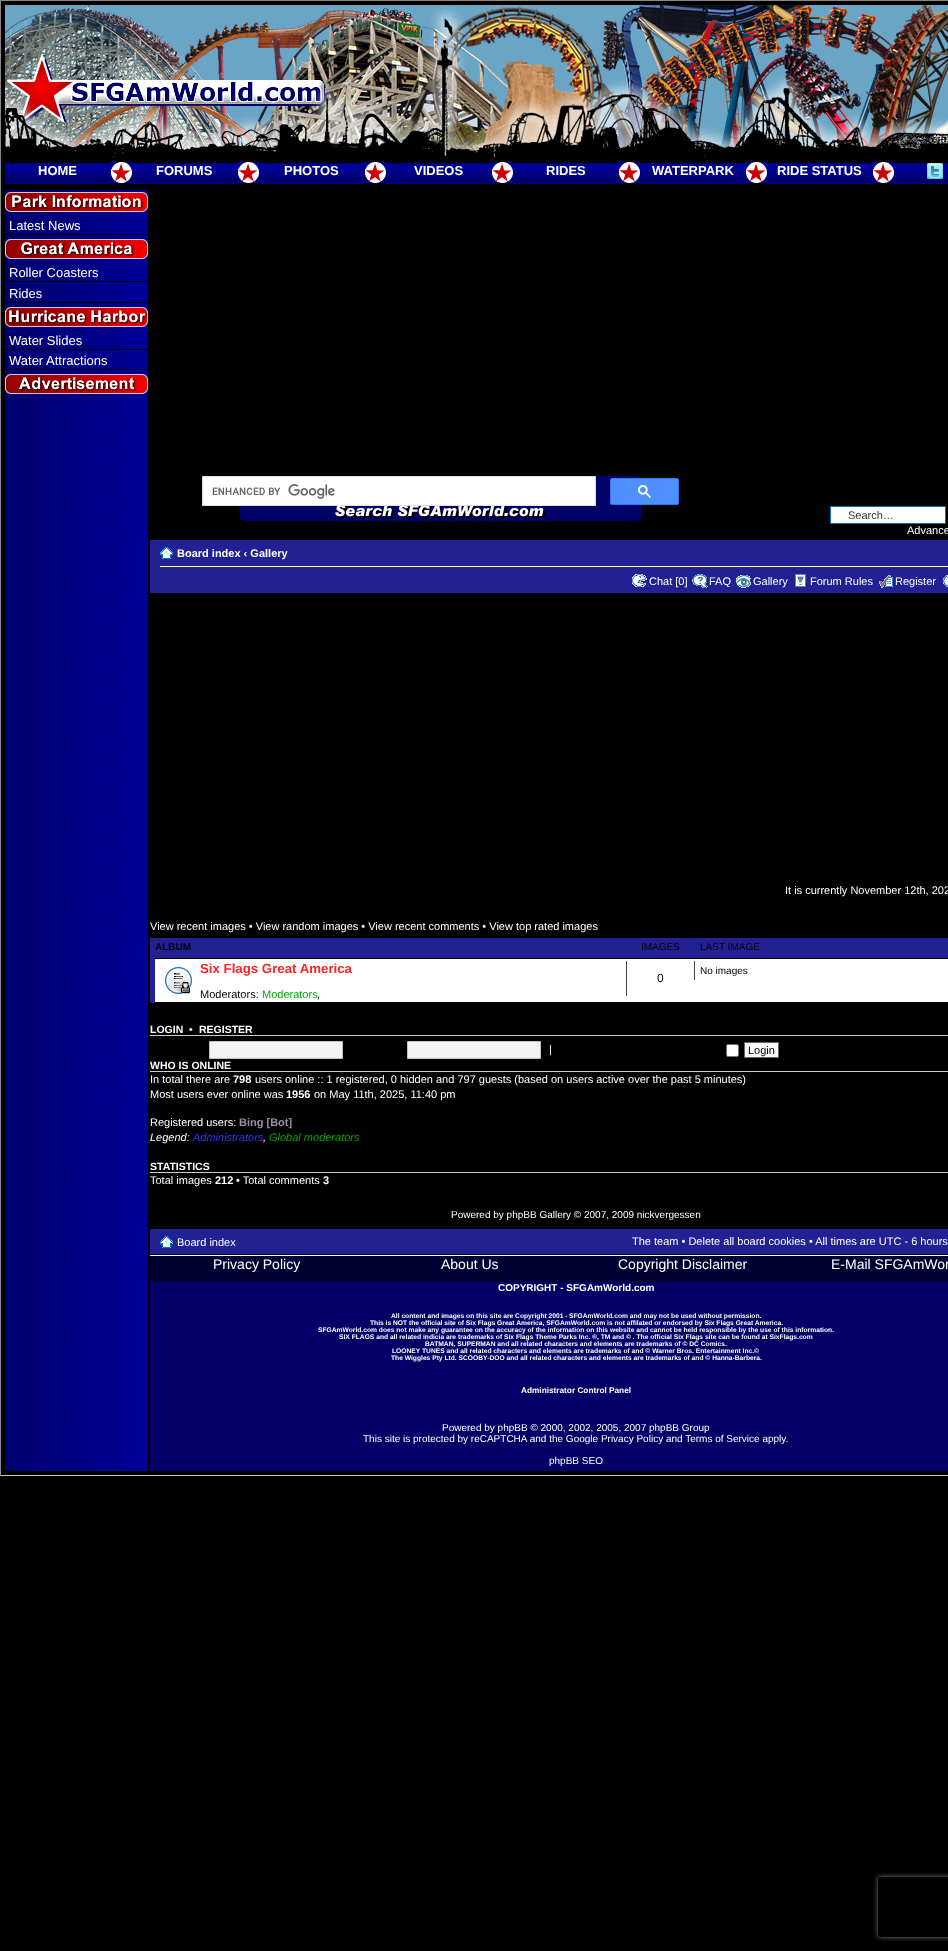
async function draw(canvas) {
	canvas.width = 948;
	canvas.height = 1951;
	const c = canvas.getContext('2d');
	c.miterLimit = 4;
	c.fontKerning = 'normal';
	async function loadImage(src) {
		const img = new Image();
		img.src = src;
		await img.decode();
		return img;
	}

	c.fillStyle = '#000';
	c.fillRect(0, 0, 948, 1951);
	for (const [x, y, w, h, color] of [
		[0, 0, 948, 1, '#888'],
		[0, 1475, 948, 1, '#ccc'],
		[0, 0, 1, 1476, '#888'],
	]) {
		c.fillStyle = color;
		c.fillRect(x, y, w, h);
	}
	c.drawImage(await loadImage('img1.png'), 5, 5, 943, 152);
	c.fillStyle = '#006';
	c.fillRect(5, 163, 105, 1);
	c.drawImage(await loadImage('img2.png'), 5, 164, 105, 20);
	c.font = 'bold 13px Liberation Sans';
	c.fillStyle = '#fff';
	c.fillText('HOME', 38, 175);
	c.drawImage(await loadImage('img3.png'), 110, 162, 22, 21);
	c.fillStyle = '#006';
	c.fillRect(132, 163, 105, 1);
	c.drawImage(await loadImage('img2.png'), 132, 164, 105, 20);
	c.fillStyle = '#fff';
	c.fillText('FORUMS', 156, 175);
	c.drawImage(await loadImage('img3.png'), 237, 162, 22, 21);
	c.fillStyle = '#006';
	c.fillRect(259, 163, 105, 1);
	c.drawImage(await loadImage('img2.png'), 259, 164, 105, 20);
	c.fillStyle = '#fff';
	c.fillText('PHOTOS', 284, 175);
	c.drawImage(await loadImage('img3.png'), 364, 162, 22, 21);
	c.fillStyle = '#006';
	c.fillRect(386, 163, 105, 1);
	c.drawImage(await loadImage('img2.png'), 386, 164, 105, 20);
	c.fillStyle = '#fff';
	c.fillText('VIDEOS', 414, 175);
	c.drawImage(await loadImage('img3.png'), 491, 162, 22, 21);
	c.fillStyle = '#006';
	c.fillRect(513, 163, 105, 1);
	c.drawImage(await loadImage('img2.png'), 513, 164, 105, 20);
	c.fillStyle = '#fff';
	c.fillText('RIDES', 546, 175);
	c.drawImage(await loadImage('img3.png'), 618, 162, 22, 21);
	c.fillStyle = '#006';
	c.fillRect(640, 163, 105, 1);
	c.drawImage(await loadImage('img2.png'), 640, 164, 105, 20);
	c.fillStyle = '#fff';
	c.fillText('WATERPARK', 652, 175);
	c.drawImage(await loadImage('img3.png'), 745, 162, 22, 21);
	c.fillStyle = '#006';
	c.fillRect(767, 163, 105, 1);
	c.drawImage(await loadImage('img2.png'), 767, 164, 105, 20);
	c.fillStyle = '#fff';
	c.fillText('RIDE STATUS', 777, 175);
	c.drawImage(await loadImage('img3.png'), 872, 162, 22, 21);
	c.drawImage(await loadImage('img4.png'), 894, 163, 27, 21);
	c.drawImage(await loadImage('img4.png'), 921, 163, 27, 21);
	c.drawImage(await loadImage('img5.png'), 927, 163, 16, 16);
	c.drawImage(await loadImage('img6.png'), 5, 190, 143, 1281);
	c.drawImage(await loadImage('img7.png'), 5, 192, 143, 20);
	c.drawImage(await loadImage('img8.png'), 9, 218, 121, 16);
	c.fillStyle = '#000';
	c.fillRect(5, 234, 143, 1);
	c.font = '13px Liberation Sans';
	c.fillStyle = '#fff';
	c.fillText('Latest News', 9, 230);
	c.drawImage(await loadImage('img9.png'), 5, 237, 125, 27);
	c.drawImage(await loadImage('img10.png'), 5, 239, 143, 20);
	c.drawImage(await loadImage('img11.png'), 5, 265, 125, 16);
	c.fillStyle = '#000';
	c.fillRect(5, 281, 143, 1);
	c.fillStyle = '#fff';
	c.fillText('Roller Coasters', 9, 277);
	c.drawImage(await loadImage('img8.png'), 9, 286, 121, 16);
	c.fillStyle = '#000';
	c.fillRect(5, 302, 143, 1);
	c.fillStyle = '#fff';
	c.fillText('Rides', 9, 298);
	c.drawImage(await loadImage('img12.png'), 5, 305, 125, 26);
	c.drawImage(await loadImage('img13.png'), 5, 307, 143, 20);
	c.drawImage(await loadImage('img11.png'), 5, 333, 125, 16);
	c.fillStyle = '#000';
	c.fillRect(5, 349, 143, 1);
	c.fillStyle = '#fff';
	c.fillText('Water Slides', 9, 345);
	c.drawImage(await loadImage('img11.png'), 5, 353, 125, 16);
	c.fillStyle = '#000';
	c.fillRect(5, 369, 143, 1);
	c.fillStyle = '#fff';
	c.fillText('Water Attractions', 9, 365);
	c.drawImage(await loadImage('img9.png'), 5, 372, 125, 27);
	c.drawImage(await loadImage('img14.png'), 5, 374, 143, 20);
	c.drawImage(await loadImage('img15.png'), 5, 399, 125, 726);
	c.drawImage(await loadImage('img16.png'), 239, 476, 403, 45);
	c.beginPath();
	c.rect(202.5, 476.5, 393, 29);
	c.fill();
	c.strokeStyle = '#dfe1e5';
	c.stroke();
	c.drawImage(await loadImage('img17.png'), 212, 484, 123, 15);
	c.fillStyle = '#4d90fe';
	c.beginPath();
	c.roundRect(610.5, 478.5, 68, 26, 1.5);
	c.fill();
	c.strokeStyle = '#3079ed';
	c.stroke();
	c.drawImage(await loadImage('img18.png'), 638, 485, 13, 13);
	c.fillStyle = '#fff';
	c.beginPath();
	c.rect(830.5, 506.5, 115, 17);
	c.fill();
	c.strokeStyle = '#0075b0';
	c.stroke();
	c.font = '11px Liberation Sans';
	c.fillStyle = '#333';
	c.fillText('Search…', 848, 519);
	c.fillStyle = '#fff';
	c.fillText('Advance', 907, 534);
	c.fillStyle = '#212194';
	c.fillRect(150, 540, 798, 53);
	c.fillStyle = '#fff';
	c.fillRect(160, 566, 788, 1);
	c.drawImage(await loadImage('img19.png'), 160, 547, 13, 12);
	c.font = 'bold 11px Liberation Sans';
	c.fillText('Board index ‹ Gallery', 177, 557);
	c.drawImage(await loadImage('img20.png'), 632, 574, 15, 13);
	c.font = '11px Liberation Sans';
	c.fillText('Chat [0]', 649, 585);
	c.drawImage(await loadImage('img21.png'), 692, 574, 16, 14);
	c.fillText('FAQ', 709, 585);
	c.drawImage(await loadImage('img22.png'), 736, 575, 15, 13);
	c.fillText('Gallery', 753, 585);
	c.drawImage(await loadImage('img23.png'), 795, 574, 11, 13);
	c.fillText('Forum Rules', 810, 585);
	c.drawImage(await loadImage('img24.png'), 879, 575, 14, 13);
	c.fillText('Register', 895, 585);
	c.drawImage(await loadImage('img25.png'), 943, 575, 5, 12);
	c.fillText('It is currently November 12th, 202', 785, 894);
	c.fillText('View recent images • View random images • View recent comments • View top rated images', 150, 930);
	c.fillStyle = '#212194';
	c.fillRect(150, 938, 798, 65);
	c.font = 'bold 10px Liberation Sans';
	c.fillStyle = '#000';
	c.fillText('ALBUM', 155, 950);
	c.font = '10px Liberation Sans';
	c.fillText('IMAGES', 641, 950);
	c.fillText('LAST IMAGE', 700, 950);
	for (const [x, y, w, h, color] of [
		[155, 959, 793, 43, '#fff'],
		[155, 958, 793, 1, '#000'],
		[155, 1002, 793, 1, '#000'],
	]) {
		c.fillStyle = color;
		c.fillRect(x, y, w, h);
	}
	c.drawImage(await loadImage('img26.png'), 165, 967, 27, 27);
	c.font = 'bold 13.25px Liberation Sans';
	c.fillStyle = '#f22';
	c.fillText('Six Flags Great America', 200, 973);
	c.font = '11px Liberation Sans';
	c.fillStyle = '#000';
	c.fillText('Moderators:', 200, 998);
	c.fillStyle = '#0a0';
	c.fillText('Moderators', 262, 998);
	c.fillStyle = '#000';
	c.fillText(',', 317, 998);
	c.fillStyle = '#444';
	c.fillRect(694, 961, 1, 19);
	c.font = '10px Liberation Sans';
	c.fillStyle = '#000';
	c.fillText('No images', 700, 974);
	c.fillStyle = '#444';
	c.fillRect(626, 961, 1, 35);
	c.font = '12px Liberation Sans';
	c.fillStyle = '#000';
	c.fillText('0', 657, 982);
	c.fillStyle = '#ccc';
	c.fillRect(150, 1035, 798, 1);
	c.font = 'bold 10.5px Liberation Sans';
	c.fillStyle = '#fff';
	for (const [text, x, y] of [
		['LOGIN', 150, 1033],
		['•', 189, 1033],
		['REGISTER', 199, 1033],
	]) {
		c.fillText(text, x, y);
	}
	c.fillStyle = '#f3f3f3';
	c.beginPath();
	c.rect(209.5, 1041.5, 133, 17);
	c.fill();
	c.strokeStyle = '#c0c0c0';
	c.stroke();
	c.beginPath();
	c.rect(407.5, 1041.5, 133, 17);
	c.fill();
	c.stroke();
	c.font = '11px Liberation Sans';
	c.fillStyle = '#fff';
	c.fillText('|', 549, 1053);
	c.beginPath();
	c.roundRect(726.5, 1044.5, 12, 12, 1.5);
	c.fill();
	c.strokeStyle = '#767676';
	c.stroke();
	c.fillStyle = '#fafafa';
	c.beginPath();
	c.rect(744.5, 1042.5, 34, 15);
	c.fill();
	c.strokeStyle = '#666';
	c.stroke();
	c.fillStyle = '#000';
	c.fillText('Login', 748, 1054);
	c.fillStyle = '#ccc';
	c.fillRect(150, 1071, 798, 1);
	c.font = 'bold 10.5px Liberation Sans';
	c.fillStyle = '#fff';
	c.fillText('WHO IS ONLINE', 150, 1069);
	c.font = '11px Liberation Sans';
	c.fillText('In total there are', 150, 1083);
	c.font = 'bold 11px Liberation Sans';
	c.fillText('798', 233, 1083);
	c.font = '11px Liberation Sans';
	c.fillText('users online :: 1 registered, 0 hidden and 797 guests (based on users active over the past 5 minutes)', 255, 1083);
	c.fillText('Most users ever online was', 150, 1098);
	c.font = 'bold 11px Liberation Sans';
	c.fillText('1956', 286, 1098);
	c.font = '11px Liberation Sans';
	c.fillText('on May 11th, 2025, 11:40 pm', 314, 1098);
	c.fillText('Registered users:', 150, 1126);
	c.font = 'bold 11px Liberation Sans';
	c.fillStyle = '#9e8da7';
	c.fillText('Bing [Bot]', 239, 1126);
	c.font = 'italic 11px Liberation Sans';
	c.fillStyle = '#fff';
	c.fillText('Legend:', 150, 1141);
	c.fillStyle = '#33f';
	c.fillText('Administrators', 193, 1141);
	c.fillStyle = '#fff';
	c.fillText(',', 263, 1141);
	c.fillStyle = '#0a0';
	c.fillText('Global moderators', 269, 1141);
	c.fillStyle = '#ccc';
	c.fillRect(150, 1172, 798, 1);
	c.font = 'bold 10.5px Liberation Sans';
	c.fillStyle = '#fff';
	c.fillText('STATISTICS', 150, 1170);
	c.font = '11px Liberation Sans';
	c.fillText('Total images', 150, 1184);
	c.font = 'bold 11px Liberation Sans';
	c.fillText('212', 215, 1184);
	c.font = '11px Liberation Sans';
	c.fillText('• Total comments', 236, 1184);
	c.font = 'bold 11px Liberation Sans';
	c.fillText('3', 323, 1184);
	c.font = '10px Liberation Sans';
	c.fillText('Powered by phpBB Gallery © 2007, 2009 nickvergessen', 451, 1218);
	c.fillStyle = '#212194';
	c.fillRect(150, 1229, 798, 25);
	c.drawImage(await loadImage('img19.png'), 160, 1236, 13, 12);
	c.font = '11px Liberation Sans';
	c.fillStyle = '#fff';
	c.fillText('Board index', 177, 1246);
	c.fillText('The team • Delete all board cookies • All times are UTC - 6 hours', 632, 1245);
	for (const [x, y, w, h, color] of [
		[150, 1282, 798, 189, '#006'],
		[150, 1254, 798, 28, '#003'],
		[150, 1255, 798, 1, '#fff'],
	]) {
		c.fillStyle = color;
		c.fillRect(x, y, w, h);
	}
	c.font = '14px Liberation Sans';
	for (const [text, x, y] of [
		['Privacy Policy', 213, 1269],
		['About Us', 441, 1269],
		['Copyright Disclaimer', 618, 1269],
		['E-Mail SFGAmWor', 831, 1269],
	]) {
		c.fillText(text, x, y);
	}
	c.font = 'bold 10px Liberation Sans';
	c.fillText('COPYRIGHT - SFGAmWorld.com', 498, 1291);
	c.font = 'bold 6.7px Liberation Sans';
	for (const [text, x, y] of [
		['All content and images on this site are Copyright 2001 -', 391, 1318],
		['SFGAmWorld.com and may not be used without permission.', 569, 1318],
		['This is NOT the official site of Six Flags Great America, SFGAmWorld.com is not affilated or endorsed by Six Flags Great America.', 370, 1325],
		['SFGAmWorld.com does not make any guarantee on the accuracy of the information on this website and cannot be held responsible by the use of this information.', 318, 1332],
		['SIX FLAGS and all related indicia are trademarks of Six Flags Theme Parks Inc. ®, TM and © . The official Six Flags site can be found at SixFlags.com', 339, 1339],
		['BATMAN, SUPERMAN and all related characters and elements are trademarks of © DC Comics.', 425, 1346],
		['LOONEY TUNES and all related characters and elements are trademarks of and © Warner Bros. Entertainment Inc.©', 392, 1353],
		['The Wiggles Pty Ltd. SCOOBY-DOO and all related characters and elements are trademarks of and © Hanna-Barbera.', 391, 1360],
	]) {
		c.fillText(text, x, y);
	}
	c.font = 'bold 8.25px Liberation Sans';
	c.fillText('Administrator Control Panel', 521, 1393);
	c.font = '10px Liberation Sans';
	for (const [text, x, y] of [
		['Powered by phpBB © 2000, 2002, 2005, 2007 phpBB Group', 442, 1431],
		['This site is protected by reCAPTCHA and the Google Privacy Policy and Terms of Service apply.', 363, 1442],
		['phpBB SEO', 549, 1464],
	]) {
		c.fillText(text, x, y);
	}
	c.save();
	c.beginPath();
	c.moveTo(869, 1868);
	c.lineTo(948, 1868);
	c.lineTo(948, 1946);
	c.lineTo(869, 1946);
	c.closePath();
	c.moveTo(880, 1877);
	c.lineTo(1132, 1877);
	c.bezierCurveTo(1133, 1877, 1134, 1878, 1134, 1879);
	c.lineTo(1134, 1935);
	c.bezierCurveTo(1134, 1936, 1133, 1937, 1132, 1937);
	c.lineTo(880, 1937);
	c.bezierCurveTo(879, 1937, 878, 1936, 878, 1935);
	c.lineTo(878, 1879);
	c.bezierCurveTo(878, 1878, 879, 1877, 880, 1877);
	c.closePath();
	c.clip('evenodd');
	c.fillStyle = '#808080';
	c.filter = 'blur(2.5px)';
	c.beginPath();
	c.roundRect(878, 1877, 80, 60, 2);
	c.fill();
	c.filter = 'none';
	c.restore();
}

draw(document.querySelector('canvas'));
